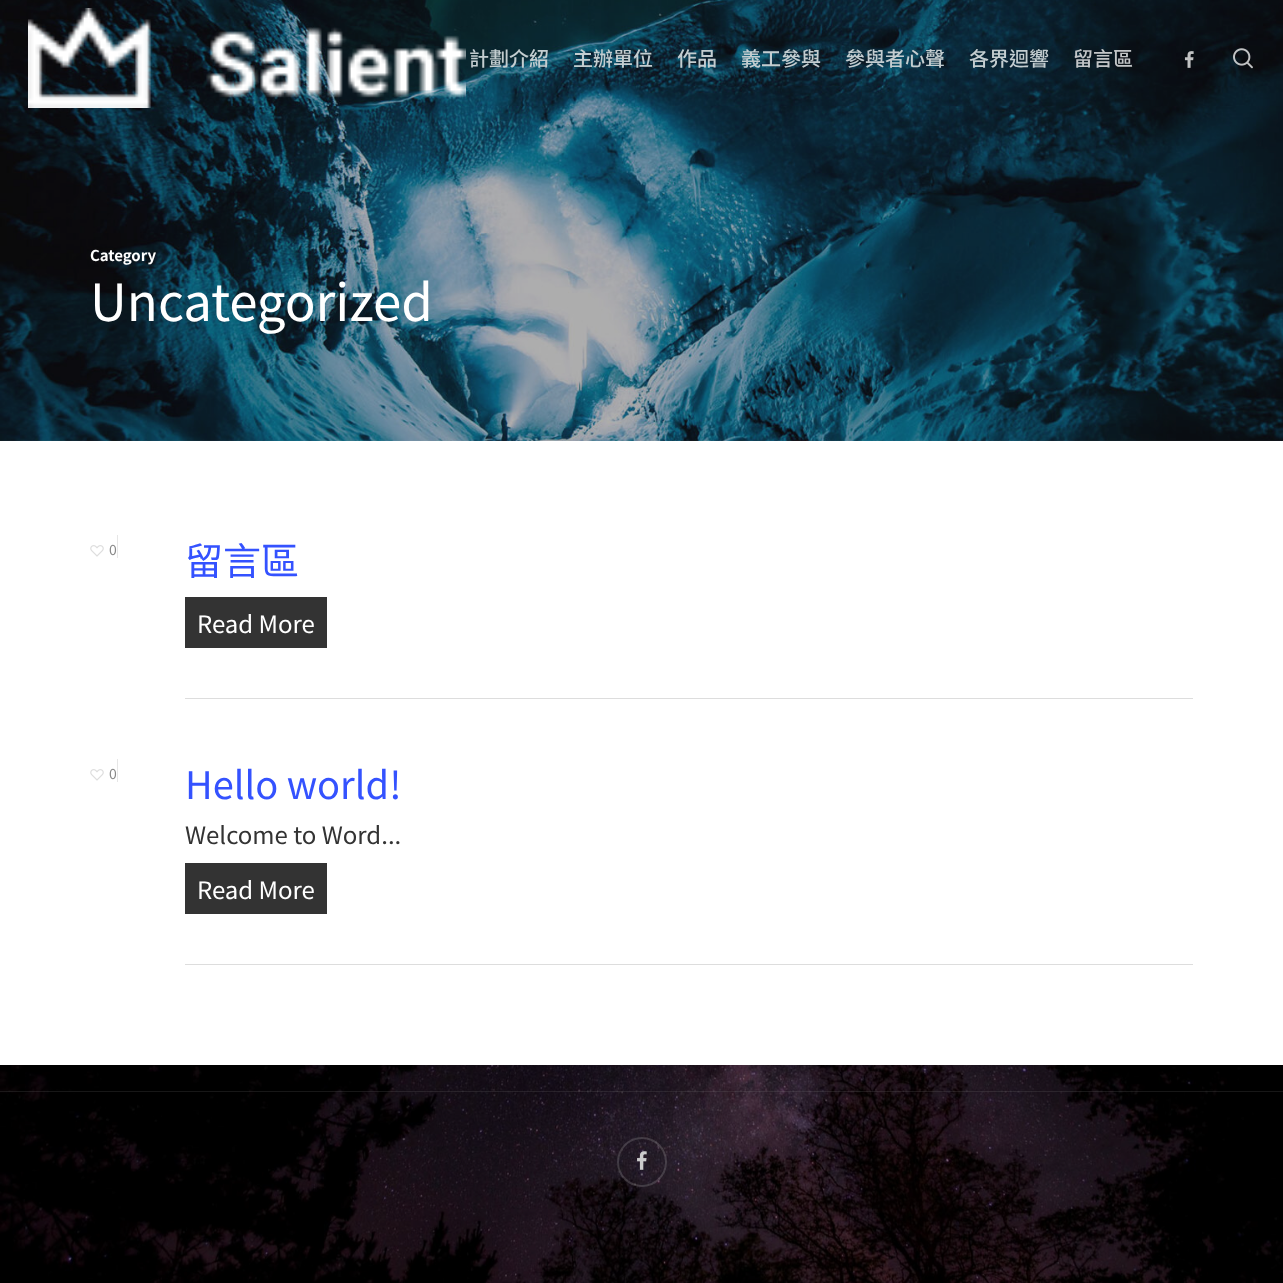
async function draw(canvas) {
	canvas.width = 1283;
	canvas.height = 1283;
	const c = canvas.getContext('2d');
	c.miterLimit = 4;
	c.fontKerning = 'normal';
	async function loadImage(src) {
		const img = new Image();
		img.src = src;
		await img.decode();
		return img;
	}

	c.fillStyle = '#fff';
	c.fillRect(0, 0, 1283, 1283);
	c.drawImage(await loadImage('img4.png'), 0, 0, 1283, 441);
	c.drawImage(await loadImage('img1.png'), 28, 8, 438, 100);
	c.font = '500 20px Noto Sans TC';
	c.fillStyle = '#c3cdd0';
	for (const [text, x, y] of [
		['計劃介紹', 469, 66],
		['主辦單位', 573, 66],
		['作品', 677, 66],
		['義工參與', 741, 66],
		['參與者心聲', 845, 66],
		['各界迴響', 969, 66],
	]) {
		c.fillText(text, x, y);
	}
	c.fillStyle = '#c2c5c7';
	c.fillText('留言區', 1073, 66);
	c.drawImage(await loadImage('img2.png'), 1184, 51, 10, 17);
	c.drawImage(await loadImage('img3.png'), 1233, 48, 20, 21);
	c.font = 'bold 15px Noto Sans TC';
	c.fillStyle = '#fff';
	c.fillText('Category', 90, 261);
	c.font = '51px Noto Sans TC';
	c.fillText('Uncategorized', 90, 321);
	c.fillStyle = '#e6e6e6';
	c.fillRect(117, 535, 1, 23);
	c.drawImage(await loadImage('img5.png'), 90, 545, 14, 12);
	c.font = '14px Noto Sans TC';
	c.fillStyle = '#888';
	c.fillText('0', 109, 555);
	c.fillStyle = '#ddd';
	c.fillRect(185, 698, 1008, 1);
	c.font = '38px Noto Sans TC';
	c.fillStyle = '#3452ff';
	c.fillText('留言區', 185, 575);
	c.fillStyle = '#333';
	c.fillRect(185, 597, 142, 51);
	c.font = '24px Noto Sans TC';
	c.fillStyle = '#fff';
	c.fillText('Read More', 197, 633);
	c.fillStyle = '#e6e6e6';
	c.fillRect(117, 759, 1, 23);
	c.drawImage(await loadImage('img5.png'), 90, 769, 14, 12);
	c.font = '14px Noto Sans TC';
	c.fillStyle = '#888';
	c.fillText('0', 109, 779);
	c.fillStyle = '#ddd';
	c.fillRect(185, 964, 1008, 1);
	c.font = '38px Noto Sans TC';
	c.fillStyle = '#3452ff';
	c.fillText('Hello world!', 185, 799);
	c.font = '24px Noto Sans TC';
	c.fillStyle = '#333';
	c.fillText('Welcome to Word...', 185, 844);
	c.fillRect(185, 863, 142, 51);
	c.fillStyle = '#fff';
	c.fillText('Read More', 197, 899);
	c.drawImage(await loadImage('img6.png'), 0, 1065, 1283, 218);
	c.fillStyle = '#8080802e';
	c.fillRect(0, 1091, 1283, 1);
	c.drawImage(await loadImage('img7.png'), 637, 1151, 10, 19);
	c.beginPath();
	c.arc(642, 1162, 24, 0, 2 * Math.PI);
	c.strokeStyle = '#cccccc33';
	c.lineWidth = 2;
	c.stroke();
}

draw(document.querySelector('canvas'));
